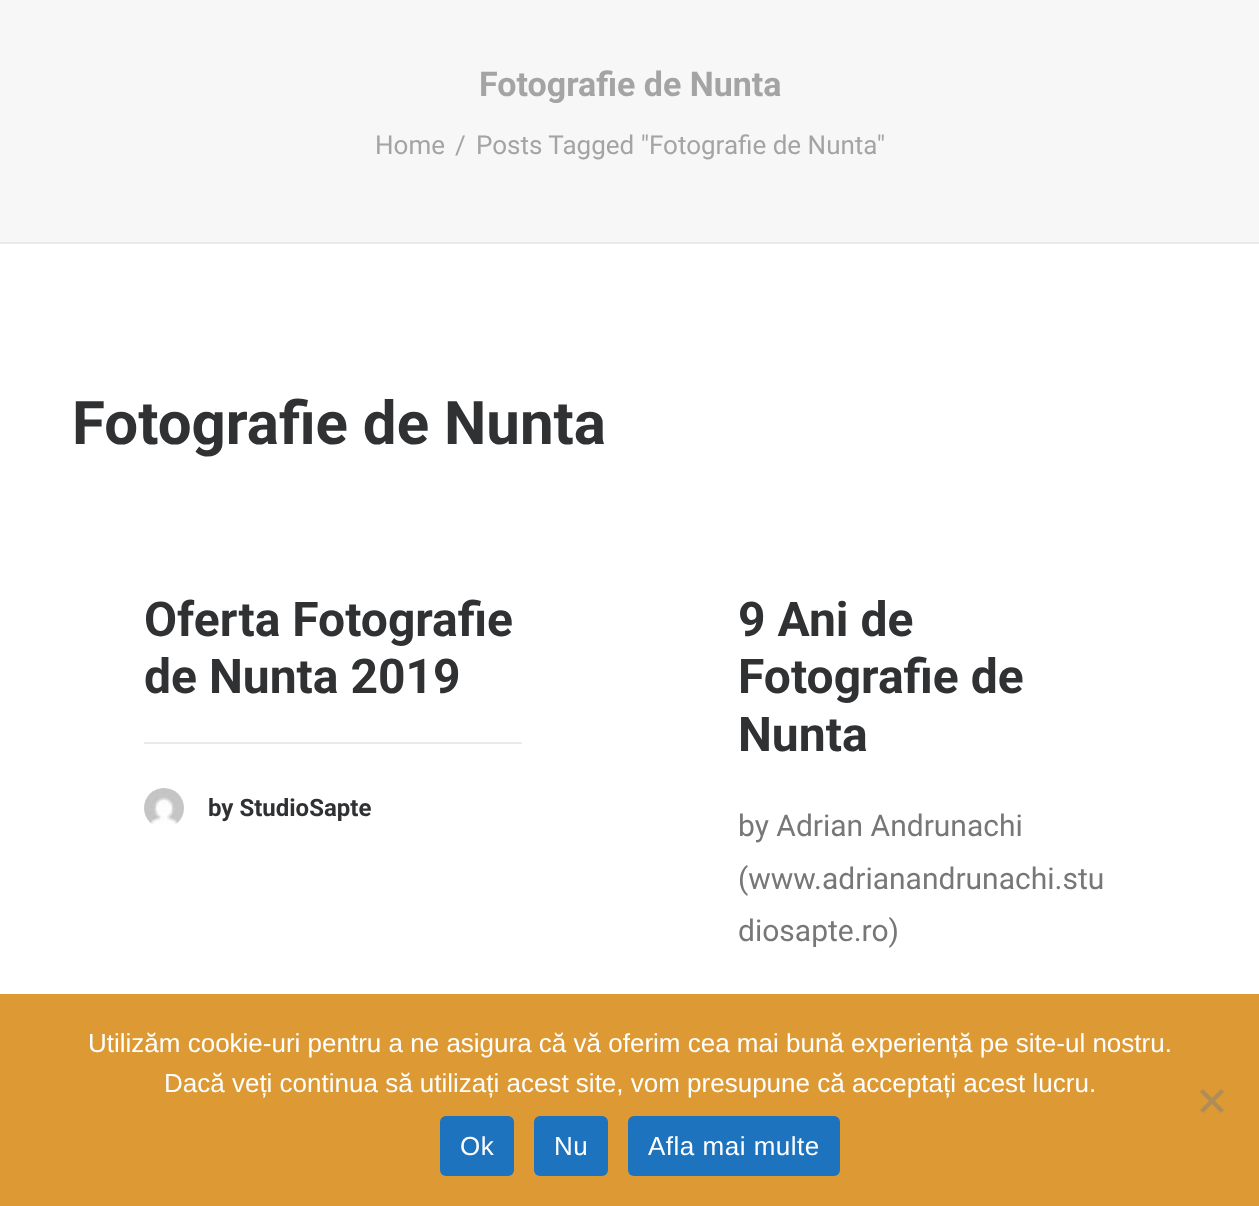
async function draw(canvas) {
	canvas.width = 1259;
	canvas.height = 1206;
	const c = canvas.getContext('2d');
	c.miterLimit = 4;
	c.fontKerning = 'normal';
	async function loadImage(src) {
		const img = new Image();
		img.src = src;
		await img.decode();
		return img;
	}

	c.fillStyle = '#fff';
	c.fillRect(0, 0, 1259, 1206);
	c.fillStyle = '#f7f7f7';
	c.fillRect(0, 0, 1259, 242);
	c.fillStyle = '#eaeaea';
	c.fillRect(0, 242, 1259, 2);
	c.font = 'bold 34px Roboto';
	c.fillStyle = '#a4a4a4';
	c.fillText('Fotografie de Nunta', 479, 96);
	c.font = '26px Roboto';
	for (const [text, x, y] of [
		['Home', 375, 154],
		['/', 455, 154],
		['Posts Tagged "Fotografie de Nunta"', 476, 154],
	]) {
		c.fillText(text, x, y);
	}
	c.font = 'bold 60px Roboto';
	c.fillStyle = '#303133';
	c.fillText('Fotografie de Nunta', 72, 444);
	c.font = 'bold 48px Roboto';
	c.fillText('Oferta Fotografie', 144, 636);
	c.fillText('de Nunta 2019', 144, 693);
	c.fillStyle = '#eaeaea';
	c.fillRect(144, 742, 378, 2);
	c.drawImage(await loadImage('img1.png'), 144, 788, 40, 36);
	c.font = 'bold 24px Roboto';
	c.fillStyle = '#303133';
	c.fillText('by StudioSapte', 208, 816);
	c.font = 'bold 48px Roboto';
	for (const [text, x, y] of [
		['9 Ani de', 738, 636],
		['Fotografie de', 738, 693],
		['Nunta', 738, 751],
	]) {
		c.fillText(text, x, y);
	}
	c.font = '30px Roboto';
	c.fillStyle = '#777';
	for (const [text, x, y] of [
		['by Adrian Andrunachi', 738, 836],
		['(www.adrianandrunachi.stu', 738, 889],
		['diosapte.ro)', 738, 941],
	]) {
		c.fillText(text, x, y);
	}
	c.fillStyle = '#d93';
	c.fillRect(0, 994, 1259, 212);
	c.font = '26px Liberation Sans';
	c.fillStyle = '#fff';
	c.fillText('Utilizăm cookie-uri pentru a ne asigura că vă oferim cea mai bună experiență pe site-ul nostru.', 88, 1052);
	c.fillText('Dacă veți continua să utilizați acest site, vom presupune că acceptați acest lucru.', 164, 1092);
	c.fillStyle = '#af8d5a';
	c.beginPath();
	c.moveTo(1221, 1089);
	c.lineTo(1224, 1092);
	c.lineTo(1203, 1113);
	c.lineTo(1200, 1110);
	c.closePath();
	c.fill();
	c.beginPath();
	c.moveTo(1200, 1092);
	c.lineTo(1203, 1089);
	c.lineTo(1224, 1110);
	c.lineTo(1221, 1113);
	c.closePath();
	c.fill();
	c.fillStyle = '#1e73be';
	c.beginPath();
	c.roundRect(440, 1116, 74, 60, 6);
	c.fill();
	c.letterSpacing = '0.5px';
	c.fillStyle = '#fff';
	c.fillText('Ok', 460, 1155);
	c.fillStyle = '#1e73be';
	c.beginPath();
	c.roundRect(534, 1116, 74, 60, 6);
	c.fill();
	c.fillStyle = '#fff';
	c.fillText('Nu', 554, 1155);
	c.fillStyle = '#1e73be';
	c.beginPath();
	c.roundRect(628, 1116, 212, 60, 6);
	c.fill();
	c.fillStyle = '#fff';
	c.fillText('Afla mai multe', 648, 1155);
}

draw(document.querySelector('canvas'));
